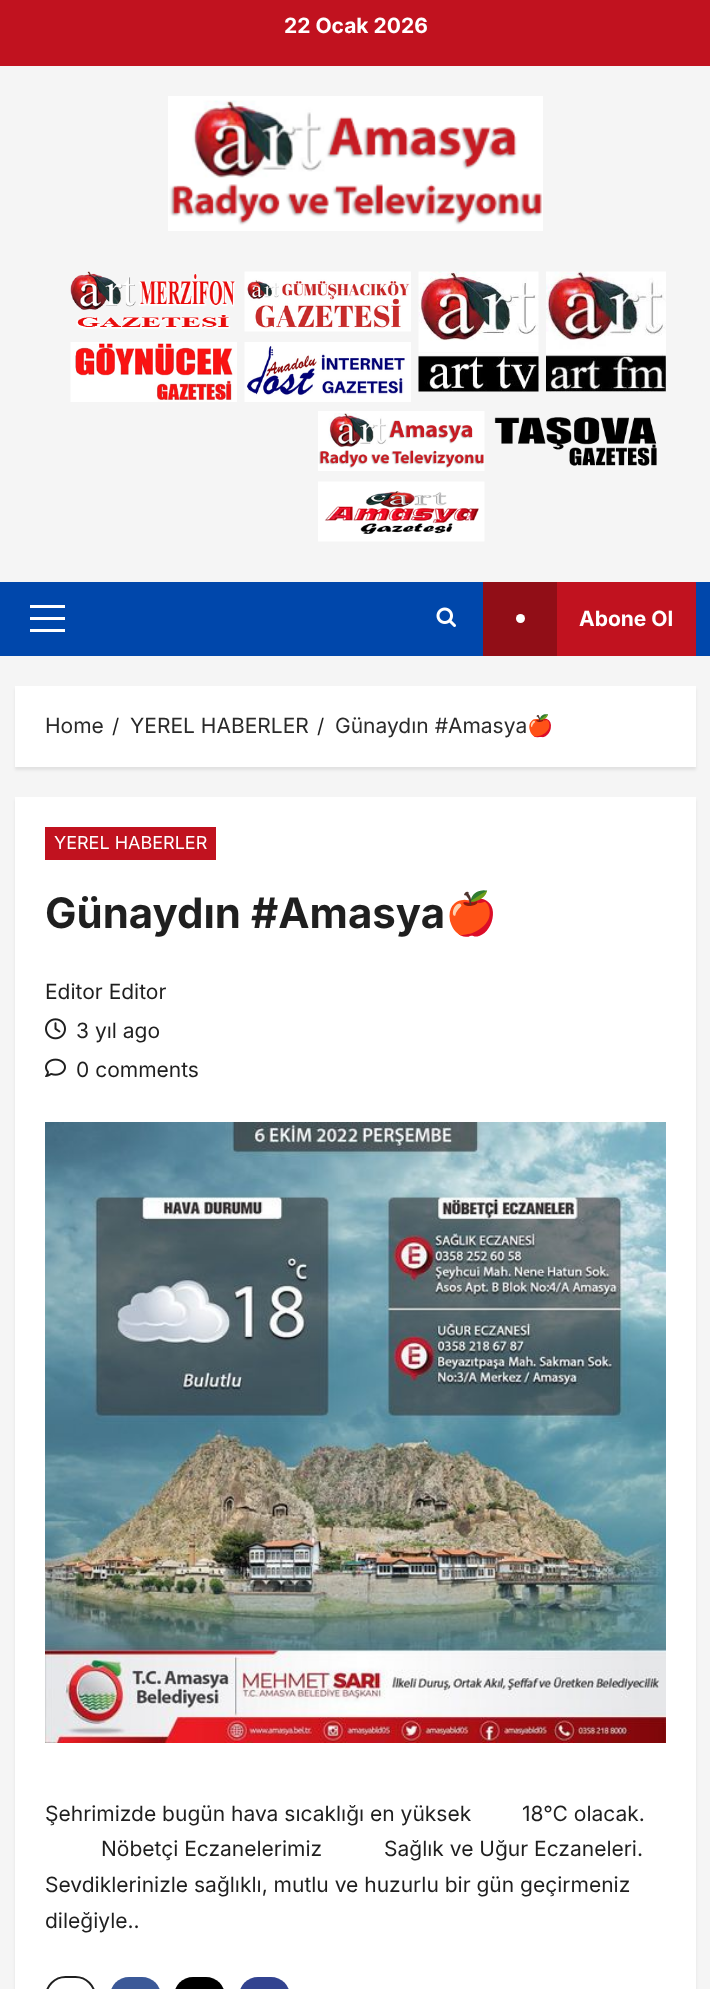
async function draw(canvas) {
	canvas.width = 710;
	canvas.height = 1989;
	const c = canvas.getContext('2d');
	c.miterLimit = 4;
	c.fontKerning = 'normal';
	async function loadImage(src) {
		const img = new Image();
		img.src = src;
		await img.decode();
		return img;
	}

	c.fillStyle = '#f5f5f5';
	c.fillRect(0, 0, 710, 1989);
	c.fillStyle = '#c1121f';
	c.fillRect(0, 0, 710, 66);
	c.font = 'bold 21px Inter';
	c.fillStyle = '#fff';
	c.fillText('22 Ocak 2026', 284, 33);
	c.drawImage(await loadImage('img1.png'), 168, 96, 375, 135);
	c.drawImage(await loadImage('img2.png'), 70, 271, 166, 58);
	c.drawImage(await loadImage('img3.png'), 70, 342, 167, 60);
	c.drawImage(await loadImage('img4.png'), 244, 271, 167, 61);
	c.drawImage(await loadImage('img5.png'), 244, 342, 167, 60);
	c.drawImage(await loadImage('img6.png'), 418, 271, 121, 121);
	c.drawImage(await loadImage('img7.png'), 546, 271, 120, 121);
	c.drawImage(await loadImage('img8.png'), 318, 411, 167, 60);
	c.drawImage(await loadImage('img9.png'), 318, 481, 167, 61);
	c.drawImage(await loadImage('img10.png'), 494, 417, 163, 49);
	for (const [x, y, w, h, color] of [
		[0, 582, 710, 74, '#0047ab'],
		[30, 617, 35, 3, '#fff'],
		[30, 605, 35, 3, '#fff'],
		[30, 629, 35, 3, '#fff'],
	]) {
		c.fillStyle = color;
		c.fillRect(x, y, w, h);
	}
	c.drawImage(await loadImage('img11.png'), 436, 607, 20, 20);
	c.fillStyle = '#c1121f';
	c.fillRect(557, 582, 139, 74);
	c.fillStyle = '#910e17';
	c.fillRect(483, 582, 74, 74);
	c.fillStyle = '#fff';
	c.beginPath();
	c.arc(520.5, 618.5, 4.5, 0, 2 * Math.PI);
	c.fill();
	c.fillText('Abone Ol', 579, 626);
	c.fillStyle = '#00000014';
	c.filter = 'blur(1.5px)';
	c.beginPath();
	c.rect(15, 689, 681, 81);
	c.fill();
	c.filter = 'none';
	c.fillStyle = '#fff';
	c.fillRect(15, 686, 681, 81);
	c.font = '21px Inter';
	c.fillStyle = '#2a2a2a';
	c.fillText('Home', 45, 733);
	c.font = '20px Inter';
	c.fillStyle = '#1f1f1f';
	c.fillText('/', 112, 733);
	c.font = '21px Inter';
	c.fillStyle = '#2a2a2a';
	c.fillText('YEREL HABERLER', 130, 733);
	c.font = '20px Inter';
	c.fillStyle = '#1f1f1f';
	c.fillText('/', 317, 733);
	c.font = '21px Inter';
	c.fillStyle = '#2a2a2a';
	c.fillText('Günaydın #Amasya', 335, 733);
	c.font = '21px Noto Color Emoji';
	c.fillText('🍎', 527, 733);
	c.fillStyle = '#00000014';
	c.filter = 'blur(1.5px)';
	c.beginPath();
	c.rect(15, 800, 681, 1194);
	c.fill();
	c.filter = 'none';
	c.fillStyle = '#fff';
	c.fillRect(15, 797, 681, 1192);
	c.fillStyle = '#c1121f';
	c.fillRect(45, 827, 171, 33);
	c.font = '18px Inter';
	c.fillStyle = '#fff';
	c.fillText('YEREL HABERLER', 54, 849);
	c.font = 'bold 42px Inter';
	c.fillStyle = '#1f1f1f';
	c.fillText('Günaydın #Amasya', 45, 928);
	c.font = 'bold 42px Noto Color Emoji';
	c.fillText('🍎', 445, 928);
	c.font = '21px Inter';
	c.fillText('Editor Editor', 45, 999);
	c.drawImage(await loadImage('img12.png'), 45, 1018, 21, 22);
	c.fillText('3 yıl ago', 76, 1038);
	c.drawImage(await loadImage('img13.png'), 45, 1058, 21, 19);
	c.fillText('0 comments', 76, 1077);
	c.drawImage(await loadImage('img14.png'), 45, 1122, 621, 621);
	for (const [text, x, y] of [
		['Şehrimizde bugün hava sıcaklığı en yüksek', 45, 1821],
		['18°C olacak.', 522, 1821],
		['Nöbetçi Eczanelerimiz', 101, 1856],
		['Sağlık ve Uğur Eczaneleri.', 384, 1856],
		['Sevdiklerinizle sağlıklı, mutlu ve huzurlu bir gün geçirmeniz', 45, 1892],
		['dileğiyle..', 45, 1928],
	]) {
		c.fillText(text, x, y);
	}
	c.beginPath();
	c.roundRect(46, 1977, 49, 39, 24.5);
	c.strokeStyle = '#1f1f1f';
	c.lineWidth = 2;
	c.stroke();
	c.fillStyle = '#3b5998';
	c.beginPath();
	c.roundRect(110, 1977, 51, 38, 25.5);
	c.fill();
	c.fillStyle = '#000';
	c.beginPath();
	c.roundRect(174, 1977, 51, 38, 25.5);
	c.fill();
	c.fillStyle = '#324390';
	c.beginPath();
	c.roundRect(239, 1977, 51, 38, 25.5);
	c.fill();
}

draw(document.querySelector('canvas'));
